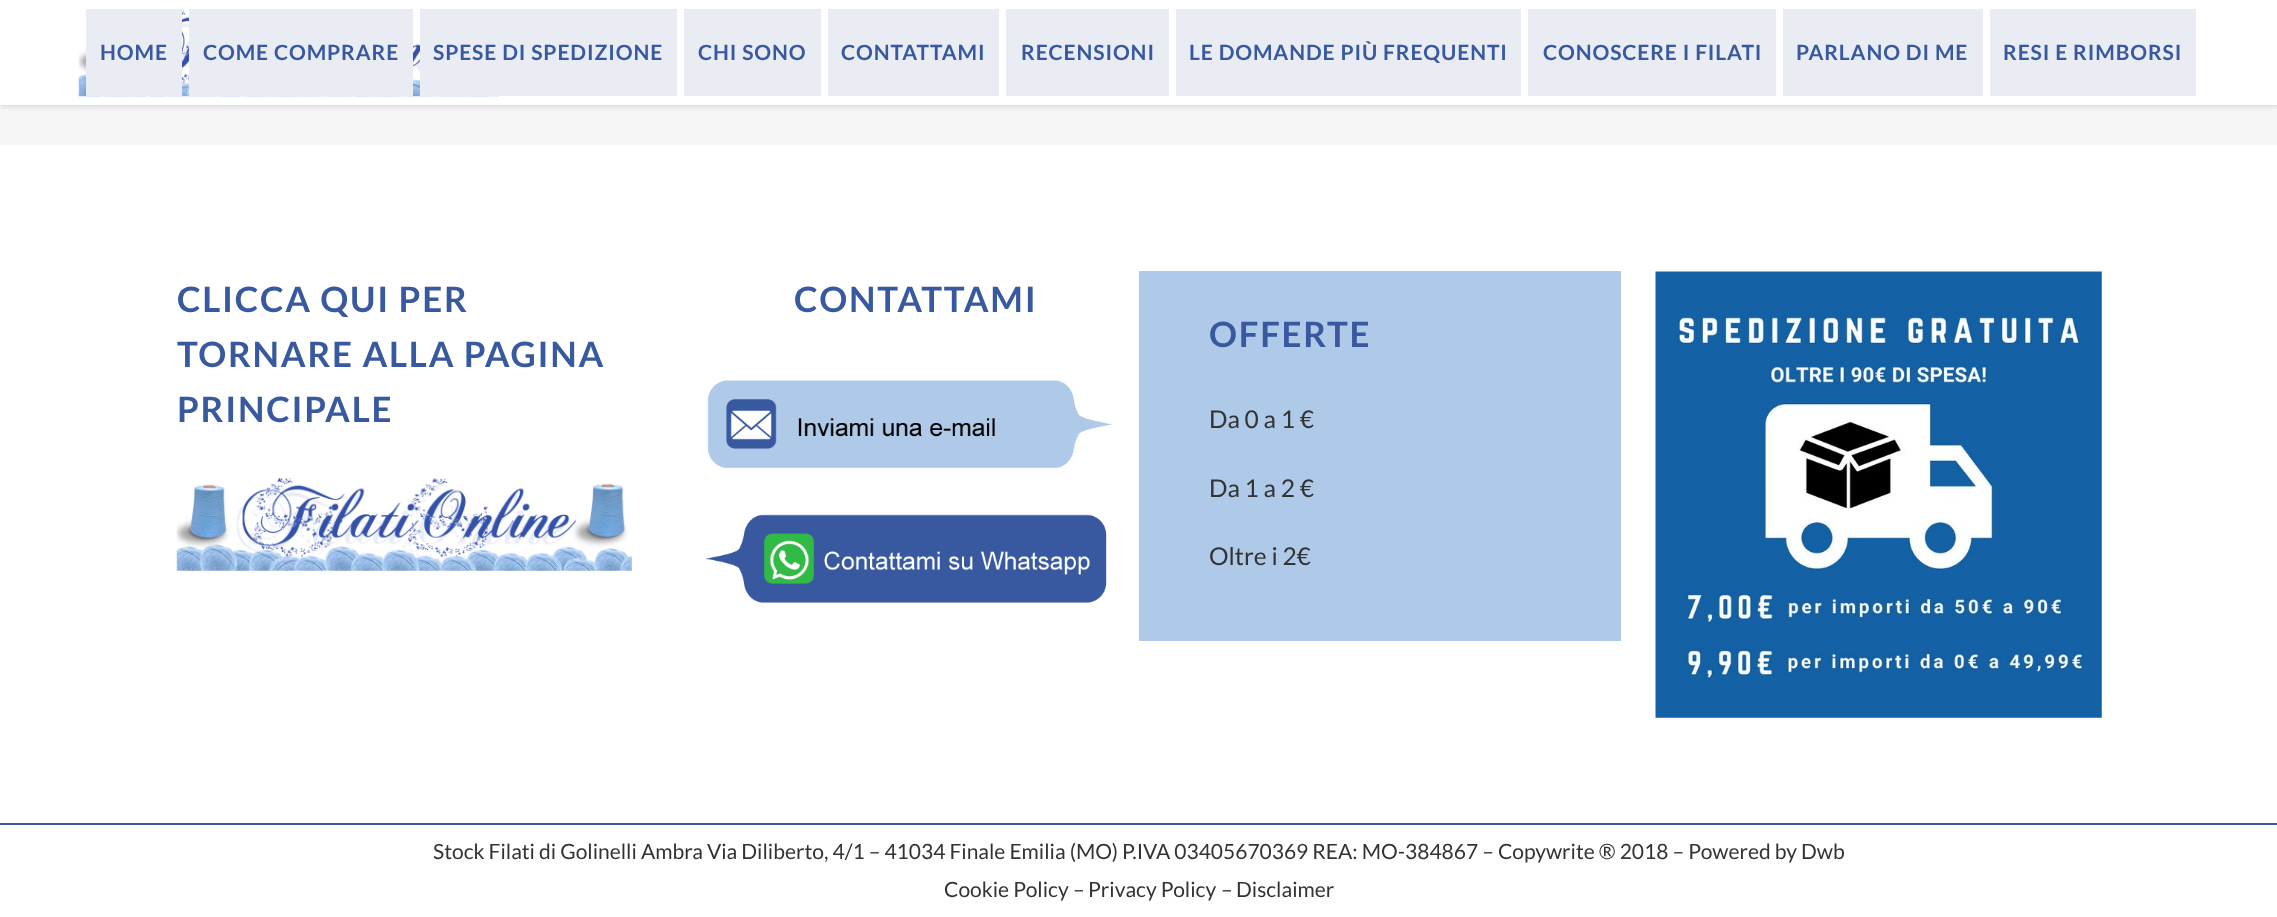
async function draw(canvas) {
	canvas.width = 2277;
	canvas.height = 917;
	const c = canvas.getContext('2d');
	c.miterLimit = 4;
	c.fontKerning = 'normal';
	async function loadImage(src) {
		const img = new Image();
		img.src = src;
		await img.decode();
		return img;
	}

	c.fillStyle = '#f6f6f6';
	c.fillRect(0, 0, 2277, 917);
	c.fillStyle = '#0000001c';
	c.filter = 'blur(2.5px)';
	c.beginPath();
	c.rect(0, 2, 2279, 105);
	c.fill();
	c.filter = 'none';
	c.fillStyle = '#fff';
	c.fillRect(0, 0, 2277, 105);
	c.drawImage(await loadImage('img1.png'), 78, 10, 421, 87);
	c.fillStyle = '#e9ecf3';
	c.fillRect(86, 9, 96, 87);
	c.letterSpacing = '0.9px';
	c.font = 'bold 21px Lato';
	c.fillStyle = '#3859a0';
	c.fillText('HOME', 100, 60);
	c.fillStyle = '#e9ecf3';
	c.fillRect(189, 9, 224, 87);
	c.fillStyle = '#3859a0';
	c.fillText('COME COMPRARE', 203, 60);
	c.fillStyle = '#e9ecf3';
	c.fillRect(420, 9, 257, 87);
	c.fillStyle = '#3859a0';
	c.fillText('SPESE DI SPEDIZIONE', 433, 60);
	c.fillStyle = '#e9ecf3';
	c.fillRect(684, 9, 137, 87);
	c.fillStyle = '#3859a0';
	c.fillText('CHI SONO', 698, 60);
	c.fillStyle = '#e9ecf3';
	c.fillRect(828, 9, 171, 87);
	c.fillStyle = '#3859a0';
	c.fillText('CONTATTAMI', 841, 60);
	c.fillStyle = '#e9ecf3';
	c.fillRect(1006, 9, 163, 87);
	c.fillStyle = '#3859a0';
	c.fillText('RECENSIONI', 1021, 60);
	c.fillStyle = '#e9ecf3';
	c.fillRect(1176, 9, 345, 87);
	c.fillStyle = '#3859a0';
	c.fillText('LE DOMANDE PIÙ FREQUENTI', 1189, 60);
	c.fillStyle = '#e9ecf3';
	c.fillRect(1528, 9, 248, 87);
	c.fillStyle = '#3859a0';
	c.fillText('CONOSCERE I FILATI', 1543, 60);
	c.fillStyle = '#e9ecf3';
	c.fillRect(1783, 9, 200, 87);
	c.fillStyle = '#3859a0';
	c.fillText('PARLANO DI ME', 1796, 60);
	c.fillStyle = '#e9ecf3';
	c.fillRect(1990, 9, 206, 87);
	c.fillStyle = '#3859a0';
	c.fillText('RESI E RIMBORSI', 2003, 60);
	c.fillStyle = '#fff';
	c.fillRect(0, 145, 2277, 678);
	c.letterSpacing = '1.75px';
	c.font = 'bold 35px Lato';
	c.fillStyle = '#3859a0';
	for (const [text, x, y] of [
		['CLICCA QUI PER', 177, 312],
		['TORNARE ALLA PAGINA', 177, 367],
		['PRINCIPALE', 177, 422],
	]) {
		c.fillText(text, x, y);
	}
	c.drawImage(await loadImage('img2.png'), 176, 477, 456, 94);
	c.fillText('CONTATTAMI', 794, 312);
	c.drawImage(await loadImage('img3.png'), 707, 380, 406, 89);
	c.drawImage(await loadImage('img4.png'), 705, 514, 402, 89);
	c.drawImage(await loadImage('img5.png'), 1655, 271, 447, 447);
	c.fillStyle = '#afcae8';
	c.fillRect(1139, 271, 482, 370);
	c.fillStyle = '#3859a0';
	c.fillText('OFFERTE', 1209, 347);
	c.letterSpacing = '0px';
	c.font = '24.5px Lato';
	c.fillStyle = '#333';
	for (const [text, x, y] of [
		['Da 0 a 1 €', 1209, 428],
		['Da 1 a 2 €', 1209, 497],
		['Oltre i 2€', 1209, 565],
	]) {
		c.fillText(text, x, y);
	}
	c.fillStyle = '#fff';
	c.fillRect(0, 825, 2277, 92);
	c.fillStyle = '#3859a0';
	c.fillRect(0, 823, 2277, 2);
	c.font = '21px Lato';
	c.fillStyle = '#333';
	for (const [text, x, y] of [
		['Stock Filati di Golinelli Ambra Via Diliberto, 4/1 – 41034 Finale Emilia (MO) P.IVA 03405670369 REA: MO-384867 – Copywrite ® 2018 – Powered by', 433, 859],
		['Dwb', 1801, 859],
		['Cookie Policy', 944, 897],
		['–', 1073, 897],
		['Privacy Policy', 1088, 897],
		['–', 1221, 897],
		['Disclaimer', 1236, 897],
	]) {
		c.fillText(text, x, y);
	}
}

draw(document.querySelector('canvas'));
